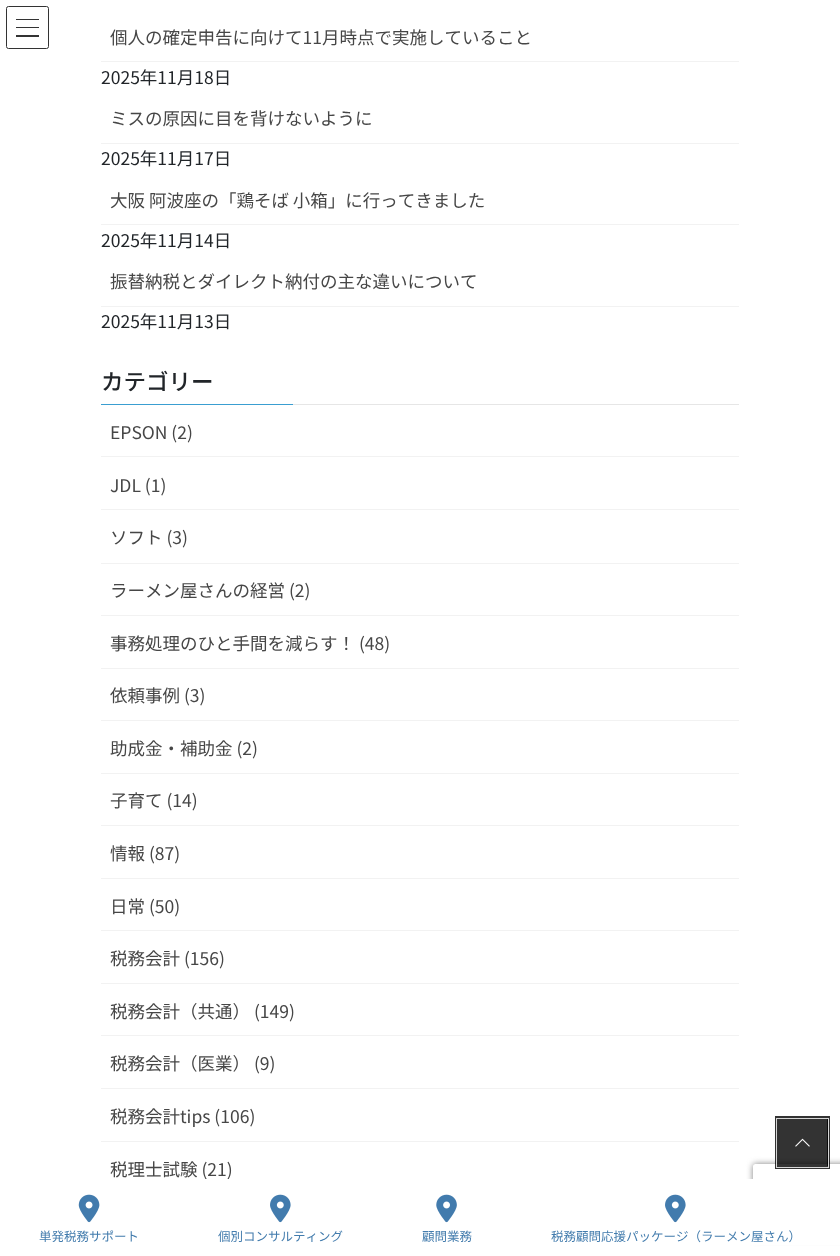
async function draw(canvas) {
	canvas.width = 840;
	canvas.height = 1256;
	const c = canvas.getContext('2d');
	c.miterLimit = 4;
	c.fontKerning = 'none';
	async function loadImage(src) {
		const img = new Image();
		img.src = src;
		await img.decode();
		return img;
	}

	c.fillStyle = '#fff';
	c.fillRect(0, 0, 840, 1256);
	for (const [x, y, w, h, color] of [
		[16, 19, 23, 1, '#333'],
		[16, 27, 23, 1, '#333'],
		[16, 35, 23, 2, '#333'],
	]) {
		c.fillStyle = color;
		c.fillRect(x, y, w, h);
	}
	c.beginPath();
	c.roundRect(6.5, 6.5, 42, 42, 2);
	c.strokeStyle = '#333';
	c.stroke();
	c.fillStyle = '#f2f2f2';
	c.fillRect(101, 61, 638, 1);
	c.font = '17.5px Noto Sans JP';
	c.fillStyle = '#464646';
	c.fillText('個人の確定申告に向けて11月時点で実施していること', 110, 44);
	c.fillStyle = '#212529';
	c.fillText('2025年11月18日', 101, 84);
	c.fillStyle = '#f2f2f2';
	c.fillRect(101, 143, 638, 1);
	c.fillStyle = '#464646';
	c.fillText('ミスの原因に目を背けないように', 110, 125);
	c.fillStyle = '#212529';
	c.fillText('2025年11月17日', 101, 165);
	c.fillStyle = '#f2f2f2';
	c.fillRect(101, 224, 638, 1);
	c.fillStyle = '#464646';
	c.fillText('大阪 阿波座の「鶏そば 小箱」に行ってきました', 110, 207);
	c.fillStyle = '#212529';
	c.fillText('2025年11月14日', 101, 247);
	c.fillStyle = '#f2f2f2';
	c.fillRect(101, 306, 638, 1);
	c.fillStyle = '#464646';
	c.fillText('振替納税とダイレクト納付の主な違いについて', 110, 288);
	c.fillStyle = '#212529';
	c.fillText('2025年11月13日', 101, 328);
	c.fillStyle = '#e6e6e6';
	c.fillRect(293, 404, 446, 1);
	c.font = '500 22.5px Noto Sans JP';
	c.fillStyle = '#212529';
	c.fillText('カテゴリー', 101, 390);
	c.fillStyle = '#3a9ed1';
	c.fillRect(101, 404, 192, 1);
	c.fillStyle = '#f2f2f2';
	c.fillRect(101, 456, 638, 1);
	c.font = '17.5px Noto Sans JP';
	c.fillStyle = '#464646';
	c.fillText('EPSON (2)', 110, 439);
	c.fillStyle = '#f2f2f2';
	c.fillRect(101, 509, 638, 1);
	c.fillStyle = '#464646';
	c.fillText('JDL (1)', 110, 492);
	c.fillStyle = '#f2f2f2';
	c.fillRect(101, 563, 638, 1);
	c.fillStyle = '#464646';
	c.fillText('ソフト (3)', 110, 544);
	c.fillStyle = '#f2f2f2';
	c.fillRect(101, 615, 638, 1);
	c.fillStyle = '#464646';
	c.fillText('ラーメン屋さんの経営 (2)', 110, 597);
	c.fillStyle = '#f2f2f2';
	c.fillRect(101, 668, 638, 1);
	c.fillStyle = '#464646';
	c.fillText('事務処理のひと手間を減らす！ (48)', 110, 650);
	c.fillStyle = '#f2f2f2';
	c.fillRect(101, 720, 638, 1);
	c.fillStyle = '#464646';
	c.fillText('依頼事例 (3)', 110, 702);
	c.fillStyle = '#f2f2f2';
	c.fillRect(101, 773, 638, 1);
	c.fillStyle = '#464646';
	c.fillText('助成金・補助金 (2)', 110, 755);
	c.fillStyle = '#f2f2f2';
	c.fillRect(101, 825, 638, 1);
	c.fillStyle = '#464646';
	c.fillText('子育て (14)', 110, 807);
	c.fillStyle = '#f2f2f2';
	c.fillRect(101, 878, 638, 1);
	c.fillStyle = '#464646';
	c.fillText('情報 (87)', 110, 860);
	c.fillStyle = '#f2f2f2';
	c.fillRect(101, 930, 638, 1);
	c.fillStyle = '#464646';
	c.fillText('日常 (50)', 110, 913);
	c.fillStyle = '#f2f2f2';
	c.fillRect(101, 983, 638, 1);
	c.fillStyle = '#464646';
	c.fillText('税務会計 (156)', 110, 965);
	c.fillStyle = '#f2f2f2';
	c.fillRect(101, 1035, 638, 1);
	c.fillStyle = '#464646';
	c.fillText('税務会計（共通） (149)', 110, 1018);
	c.fillStyle = '#f2f2f2';
	c.fillRect(101, 1088, 638, 1);
	c.fillStyle = '#464646';
	c.fillText('税務会計（医業） (9)', 110, 1070);
	c.fillStyle = '#f2f2f2';
	c.fillRect(101, 1141, 638, 1);
	c.fillStyle = '#464646';
	c.fillText('税務会計tips (106)', 110, 1123);
	c.fillText('税理士試験 (21)', 110, 1176);
	c.save();
	c.beginPath();
	c.moveTo(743, 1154);
	c.lineTo(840, 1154);
	c.lineTo(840, 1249);
	c.lineTo(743, 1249);
	c.closePath();
	c.moveTo(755.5, 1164);
	c.lineTo(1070.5, 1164);
	c.bezierCurveTo(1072, 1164, 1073, 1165, 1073, 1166.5);
	c.lineTo(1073, 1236.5);
	c.bezierCurveTo(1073, 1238, 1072, 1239, 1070.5, 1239);
	c.lineTo(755.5, 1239);
	c.bezierCurveTo(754, 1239, 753, 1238, 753, 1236.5);
	c.lineTo(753, 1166.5);
	c.bezierCurveTo(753, 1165, 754, 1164, 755.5, 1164);
	c.closePath();
	c.clip('evenodd');
	c.fillStyle = '#808080';
	c.filter = 'blur(3px)';
	c.beginPath();
	c.roundRect(753, 1164, 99, 75, 2.5);
	c.fill();
	c.filter = 'none';
	c.restore();
	c.strokeStyle = '#000000cc';
	c.lineWidth = 3;
	c.strokeRect(776.5, 1117.5, 52, 50);
	c.strokeStyle = '#ffffffcc';
	c.lineWidth = 1;
	c.strokeRect(776.5, 1118.5, 52, 49);
	c.fillStyle = '#000000cc';
	c.fillRect(778, 1119, 50, 47);
	c.drawImage(await loadImage('img1.png'), 795, 1138, 15, 9);
	c.fillStyle = '#fff';
	c.fillRect(205, 1179, 635, 66);
	c.drawImage(await loadImage('img2.png'), 78, 1194, 22, 29);
	c.font = '12.5px Noto Sans JP';
	c.fillStyle = '#437cad';
	c.fillText('単発税務サポート', 39, 1241);
	c.drawImage(await loadImage('img3.png'), 270, 1194, 21, 29);
	c.fillText('個別コンサルティング', 218, 1241);
	c.drawImage(await loadImage('img4.png'), 436, 1194, 21, 29);
	c.fillText('顧問業務', 422, 1241);
	c.drawImage(await loadImage('img3.png'), 665, 1194, 21, 29);
	c.fillText('税務顧問応援パッケージ（ラーメン屋さん）', 551, 1241);
}

draw(document.querySelector('canvas'));
